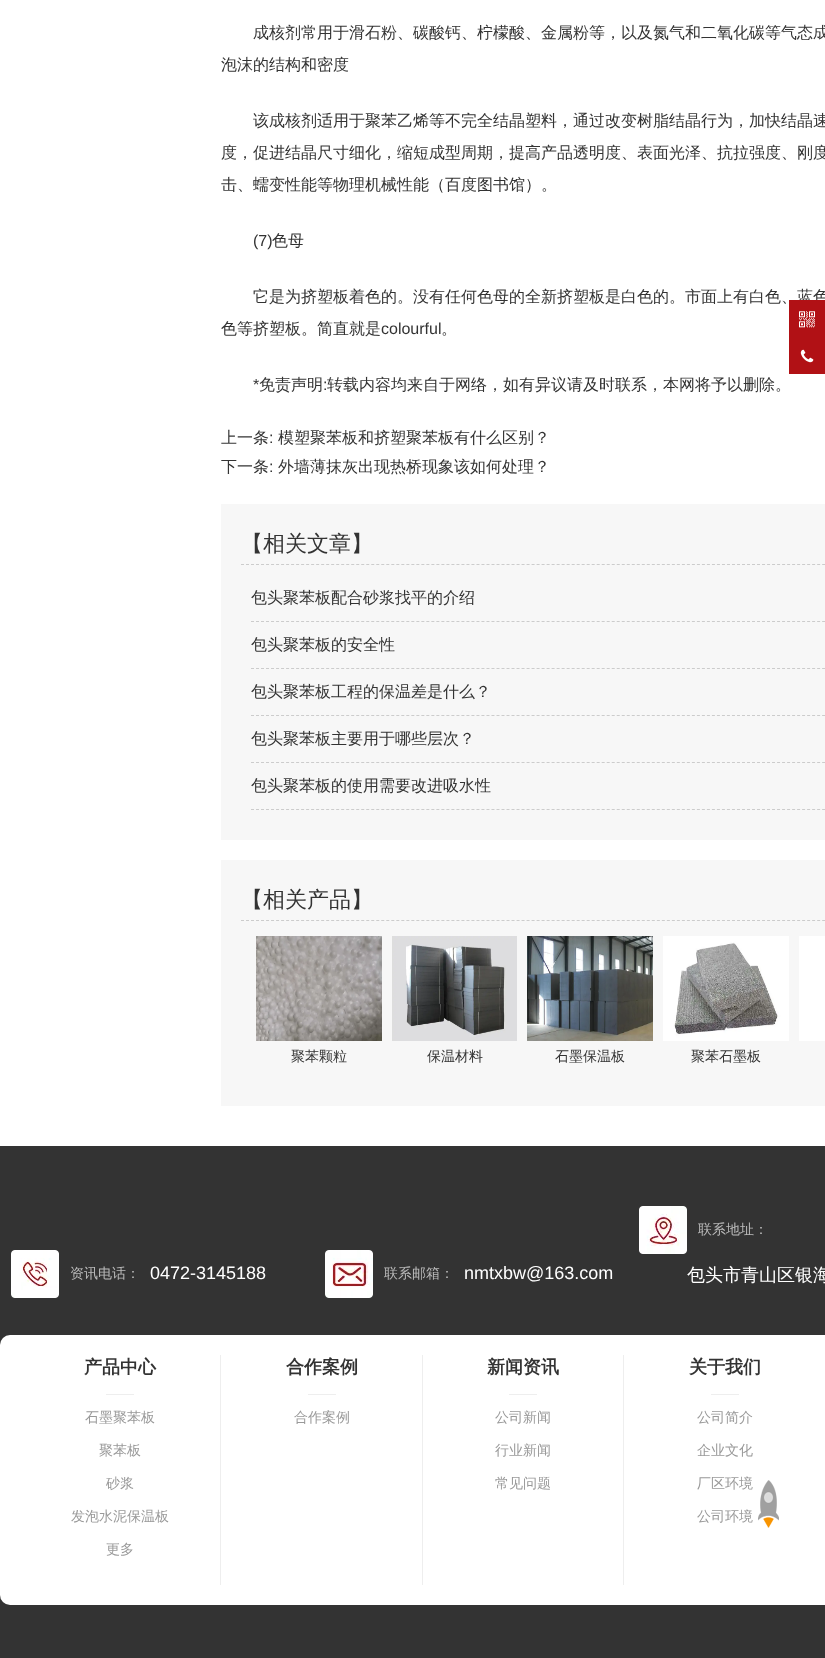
async function draw(canvas) {
	canvas.width = 825;
	canvas.height = 1658;
	const c = canvas.getContext('2d');
	c.miterLimit = 4;
	c.fontKerning = 'normal';
	async function loadImage(src) {
		const img = new Image();
		img.src = src;
		await img.decode();
		return img;
	}

	c.fillStyle = '#fff';
	c.fillRect(0, 0, 825, 1658);
	c.font = '500 16px WenQuanYi Zen Hei';
	c.fillStyle = '#333';
	for (const [text, x, y] of [
		['成核剂常用于滑石粉、碳酸钙、柠檬酸、金属粉等，以及氮气和二氧化碳等气态成', 253, 38],
		['泡沫的结构和密度', 221, 70],
		['该成核剂适用于聚苯乙烯等不完全结晶塑料，通过改变树脂结晶行为，加快结晶速', 253, 126],
		['度，促进结晶尺寸细化，缩短成型周期，提高产品透明度、表面光泽、抗拉强度、刚度', 221, 158],
		['击、蠕变性能等物理机械性能（百度图书馆）。', 221, 190],
	]) {
		c.fillText(text, x, y);
	}
	c.font = '16px Liberation Sans';
	c.fillText('(7)', 253, 246);
	c.font = '500 16px WenQuanYi Zen Hei';
	for (const [text, x, y] of [
		['色母', 272, 246],
		['它是为挤塑板着色的。没有任何色母的全新挤塑板是白色的。市面上有白色、蓝色', 253, 302],
		['色等挤塑板。简直就是', 221, 334],
	]) {
		c.fillText(text, x, y);
	}
	c.font = '16px Liberation Sans';
	c.fillText('colourful', 381, 334);
	c.font = '500 16px WenQuanYi Zen Hei';
	c.fillText('。', 441, 334);
	c.font = '16px Liberation Sans';
	c.fillText('*', 253, 390);
	c.font = '500 16px WenQuanYi Zen Hei';
	c.fillText('免责声明', 259, 390);
	c.font = '16px Liberation Sans';
	c.fillText(':', 323, 390);
	c.font = '500 16px WenQuanYi Zen Hei';
	c.fillText('转载内容均来自于网络，如有异议请及时联系，本网将予以删除。', 327, 390);
	c.fillText('上一条', 221, 443);
	c.font = '16px Liberation Sans';
	c.fillText(':', 269, 443);
	c.font = '500 16px WenQuanYi Zen Hei';
	c.fillText('模塑聚苯板和挤塑聚苯板有什么区别？', 278, 443);
	c.fillText('下一条', 221, 472);
	c.font = '16px Liberation Sans';
	c.fillText(':', 269, 472);
	c.font = '500 16px WenQuanYi Zen Hei';
	c.fillText('外墙薄抹灰出现热桥现象该如何处理？', 278, 472);
	c.fillStyle = '#f7f7f7';
	c.fillRect(221, 504, 604, 336);
	c.beginPath();
	c.moveTo(241, 564.5);
	c.lineTo(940, 564.5);
	c.strokeStyle = '#ccc';
	c.setLineDash([3, 2.01]);
	c.stroke();
	c.font = '500 22px WenQuanYi Zen Hei';
	c.fillStyle = '#333';
	c.fillText('【相关文章】', 241, 551);
	c.beginPath();
	c.moveTo(251, 621.5);
	c.lineTo(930, 621.5);
	c.stroke();
	c.font = '500 16px WenQuanYi Zen Hei';
	c.fillText('包头聚苯板配合砂浆找平的介绍', 251, 603);
	c.beginPath();
	c.moveTo(251, 668.5);
	c.lineTo(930, 668.5);
	c.stroke();
	c.fillText('包头聚苯板的安全性', 251, 650);
	c.beginPath();
	c.moveTo(251, 715.5);
	c.lineTo(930, 715.5);
	c.stroke();
	c.fillText('包头聚苯板工程的保温差是什么？', 251, 697);
	c.beginPath();
	c.moveTo(251, 762.5);
	c.lineTo(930, 762.5);
	c.stroke();
	c.fillText('包头聚苯板主要用于哪些层次？', 251, 744);
	c.beginPath();
	c.moveTo(251, 809.5);
	c.lineTo(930, 809.5);
	c.stroke();
	c.fillText('包头聚苯板的使用需要改进吸水性', 251, 791);
	c.fillStyle = '#f7f7f7';
	c.fillRect(221, 860, 604, 246);
	c.beginPath();
	c.moveTo(241, 920.5);
	c.lineTo(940, 920.5);
	c.stroke();
	c.font = '500 22px WenQuanYi Zen Hei';
	c.fillStyle = '#333';
	c.fillText('【相关产品】', 241, 907);
	c.fillStyle = '#fff';
	c.fillRect(799, 936, 26, 105);
	c.drawImage(await loadImage('img1.png'), 256, 936, 126, 105);
	c.font = '500 14px WenQuanYi Zen Hei';
	c.fillStyle = '#333';
	c.fillText('聚苯颗粒', 291, 1061);
	c.drawImage(await loadImage('img2.png'), 392, 936, 125, 105);
	c.fillText('保温材料', 427, 1061);
	c.drawImage(await loadImage('img3.png'), 527, 936, 126, 105);
	c.fillText('石墨保温板', 555, 1061);
	c.drawImage(await loadImage('img4.png'), 663, 936, 126, 105);
	c.fillText('聚苯石墨板', 691, 1061);
	c.fillRect(0, 1146, 825, 512);
	c.drawImage(await loadImage('img5.png'), 11, 1250, 48, 48);
	c.fillStyle = '#bbb';
	c.fillText('资讯电话：', 70, 1278);
	c.font = '18px Liberation Sans';
	c.fillStyle = '#fff';
	c.fillText('0472-3145188', 150, 1279);
	c.drawImage(await loadImage('img6.png'), 325, 1250, 48, 48);
	c.font = '500 14px WenQuanYi Zen Hei';
	c.fillStyle = '#bbb';
	c.fillText('联系邮箱：', 384, 1278);
	c.font = '18px Liberation Sans';
	c.fillStyle = '#fff';
	c.fillText('nmtxbw@163.com', 464, 1279);
	c.drawImage(await loadImage('img7.png'), 639, 1206, 48, 48);
	c.font = '500 14px WenQuanYi Zen Hei';
	c.fillStyle = '#bbb';
	c.fillText('联系地址：', 698, 1234);
	c.font = '500 18px WenQuanYi Zen Hei';
	c.fillStyle = '#fff';
	c.fillText('包头市青山区银海', 687, 1281);
	c.beginPath();
	c.roundRect(0, 1335, 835, 270, 10);
	c.fill();
	c.fillStyle = '#eee';
	c.fillRect(220, 1355, 1, 230);
	c.font = 'bold 18px WenQuanYi Zen Hei';
	c.fillStyle = '#333';
	c.fillText('产品中心', 84, 1373);
	c.fillStyle = '#eee';
	c.fillRect(106, 1394, 28, 1);
	c.font = '500 14px WenQuanYi Zen Hei';
	c.fillStyle = '#999';
	for (const [text, x, y] of [
		['石墨聚苯板', 85, 1422],
		['聚苯板', 99, 1455],
		['砂浆', 106, 1488],
		['发泡水泥保温板', 71, 1521],
		['更多', 106, 1554],
	]) {
		c.fillText(text, x, y);
	}
	c.fillStyle = '#eee';
	c.fillRect(422, 1355, 1, 230);
	c.font = 'bold 18px WenQuanYi Zen Hei';
	c.fillStyle = '#333';
	c.fillText('合作案例', 286, 1373);
	c.fillStyle = '#eee';
	c.fillRect(308, 1394, 28, 1);
	c.font = '500 14px WenQuanYi Zen Hei';
	c.fillStyle = '#999';
	c.fillText('合作案例', 294, 1422);
	c.fillStyle = '#eee';
	c.fillRect(623, 1355, 1, 230);
	c.font = 'bold 18px WenQuanYi Zen Hei';
	c.fillStyle = '#333';
	c.fillText('新闻资讯', 487, 1373);
	c.fillStyle = '#eee';
	c.fillRect(509, 1394, 28, 1);
	c.font = '500 14px WenQuanYi Zen Hei';
	c.fillStyle = '#999';
	for (const [text, x, y] of [
		['公司新闻', 495, 1422],
		['行业新闻', 495, 1455],
		['常见问题', 495, 1488],
	]) {
		c.fillText(text, x, y);
	}
	c.font = 'bold 18px WenQuanYi Zen Hei';
	c.fillStyle = '#333';
	c.fillText('关于我们', 689, 1373);
	c.fillStyle = '#eee';
	c.fillRect(711, 1394, 28, 1);
	c.font = '500 14px WenQuanYi Zen Hei';
	c.fillStyle = '#999';
	for (const [text, x, y] of [
		['公司简介', 697, 1422],
		['企业文化', 697, 1455],
		['厂区环境', 697, 1488],
		['公司环境', 697, 1521],
	]) {
		c.fillText(text, x, y);
	}
	c.fillStyle = '#b11115';
	c.fillRect(789, 300, 36, 74);
	c.drawImage(await loadImage('img8.png'), 799, 311, 16, 17);
	c.drawImage(await loadImage('img9.png'), 800, 349, 14, 14);
	c.drawImage(await loadImage('img10.png'), 758, 1480, 21, 48);
}

draw(document.querySelector('canvas'));
